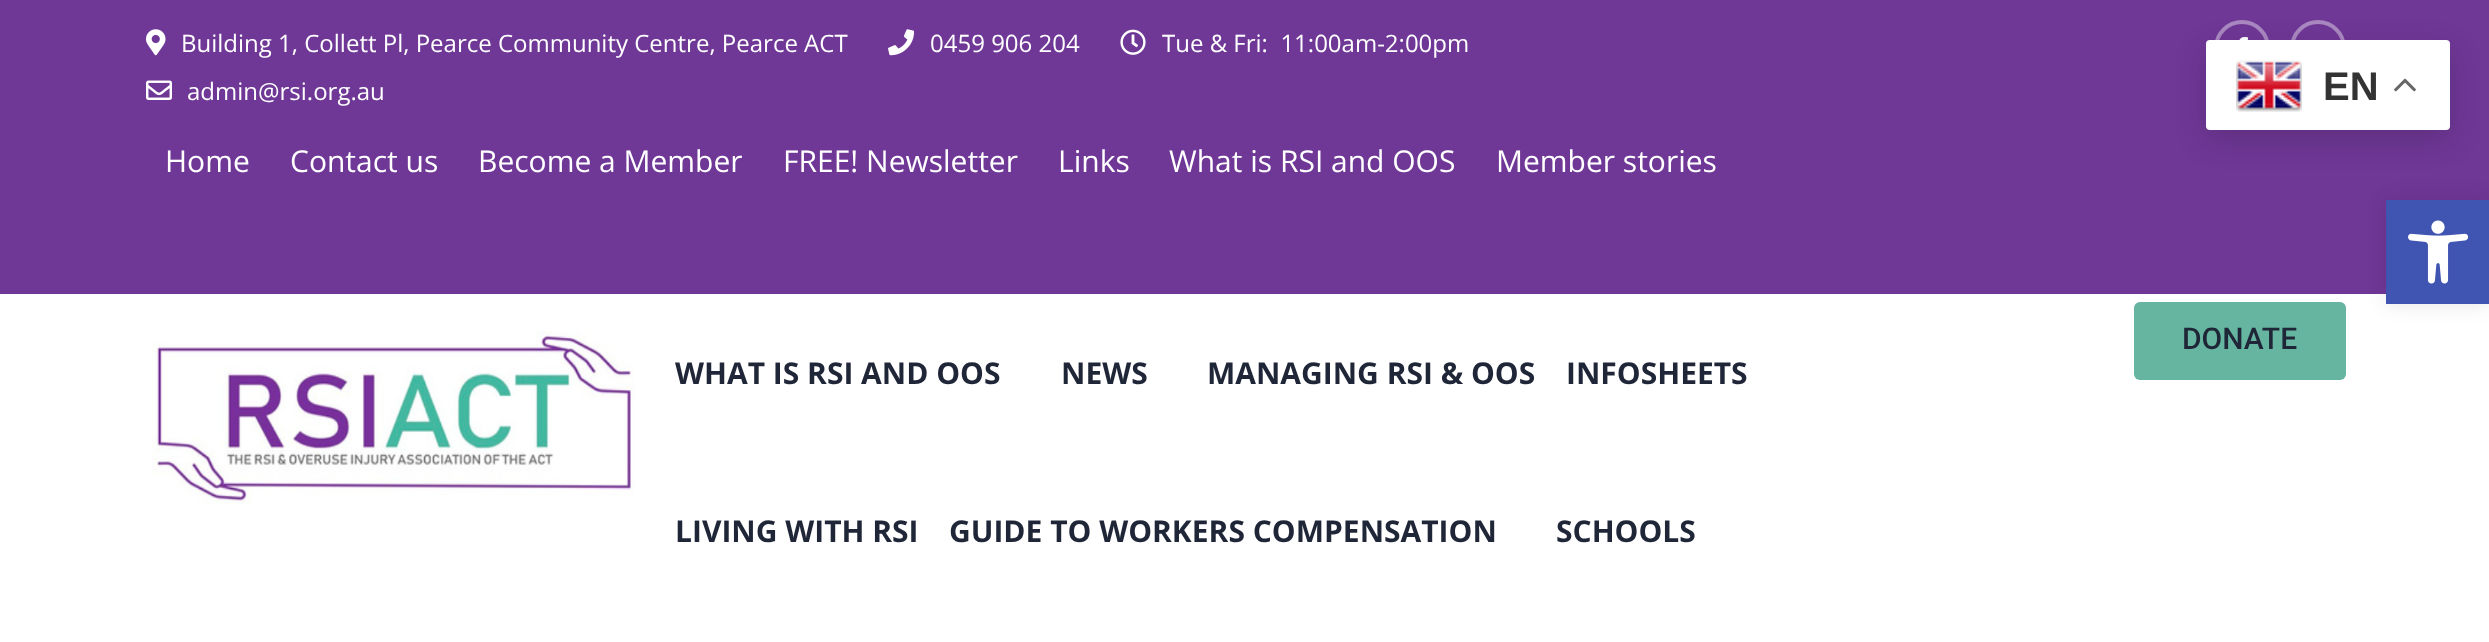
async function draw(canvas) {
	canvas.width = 2489;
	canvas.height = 642;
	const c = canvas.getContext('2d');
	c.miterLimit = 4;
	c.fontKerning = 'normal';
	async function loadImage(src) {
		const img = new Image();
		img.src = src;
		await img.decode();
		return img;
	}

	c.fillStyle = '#fff';
	c.fillRect(0, 0, 2489, 642);
	c.fillStyle = '#6f3796';
	c.fillRect(0, 0, 2489, 294);
	c.drawImage(await loadImage('img1.png'), 146, 29, 20, 27);
	c.font = '24px Open Sans';
	c.fillStyle = '#fff';
	c.fillText('Building 1, Collett Pl, Pearce Community Centre, Pearce ACT', 181, 52);
	c.drawImage(await loadImage('img2.png'), 888, 29, 26, 27);
	c.fillText('0459 906 204', 930, 52);
	c.drawImage(await loadImage('img3.png'), 1120, 29, 26, 26);
	c.fillText('Tue & Fri:  11:00am-2:00pm', 1162, 52);
	c.drawImage(await loadImage('img4.png'), 146, 80, 26, 20);
	c.fillText('admin@rsi.org.au', 187, 100);
	c.beginPath();
	c.arc(2242, 48, 26, 0, 2 * Math.PI);
	c.strokeStyle = '#a987c0';
	c.lineWidth = 4;
	c.stroke();
	c.drawImage(await loadImage('img5.png'), 2239, 37, 9, 3);
	c.beginPath();
	c.arc(2318, 48, 26, 0, 2 * Math.PI);
	c.stroke();
	c.font = '30px Open Sans';
	for (const [text, x, y] of [
		['Home', 165, 172],
		['Contact us', 290, 172],
		['Become a Member', 478, 172],
		['FREE! Newsletter', 783, 172],
		['Links', 1058, 172],
		['What is RSI and OOS', 1169, 172],
		['Member stories', 1496, 172],
	]) {
		c.fillText(text, x, y);
	}
	c.drawImage(await loadImage('img6.png'), 151, 331, 484, 173);
	c.fillStyle = '#65b5a0';
	c.beginPath();
	c.roundRect(2134, 302, 212, 78, 6);
	c.fill();
	c.font = '500 30px Roboto';
	c.fillStyle = '#1f2637';
	c.fillText('DONATE', 2182, 349);
	c.font = 'bold 30px Open Sans';
	for (const [text, x, y] of [
		['WHAT IS RSI AND OOS', 675, 384],
		['NEWS', 1061, 384],
		['MANAGING RSI & OOS', 1207, 384],
		['INFOSHEETS', 1566, 384],
		['LIVING WITH RSI', 675, 542],
		['GUIDE TO WORKERS COMPENSATION', 949, 542],
		['SCHOOLS', 1556, 542],
	]) {
		c.fillText(text, x, y);
	}
	c.fillStyle = '#00000026';
	c.filter = 'blur(15px)';
	c.beginPath();
	c.roundRect(2206, 50, 244, 90, 4);
	c.fill();
	c.filter = 'none';
	c.fillStyle = '#fff';
	c.beginPath();
	c.roundRect(2206, 40, 244, 90, 4);
	c.fill();
	c.drawImage(await loadImage('img7.png'), 2236, 60, 66, 52);
	c.font = 'bold 40px Liberation Sans';
	c.fillStyle = '#333';
	c.fillText('EN', 2323, 100);
	c.drawImage(await loadImage('img8.png'), 2394, 78, 22, 14);
	c.fillStyle = '#0000001a';
	c.filter = 'blur(10px)';
	c.beginPath();
	c.rect(2386, 200, 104, 104);
	c.fill();
	c.filter = 'none';
	c.fillStyle = '#4054b2';
	c.fillRect(2386, 200, 103, 104);
	c.drawImage(await loadImage('img9.png'), 2408, 220, 61, 64);
}

draw(document.querySelector('canvas'));
